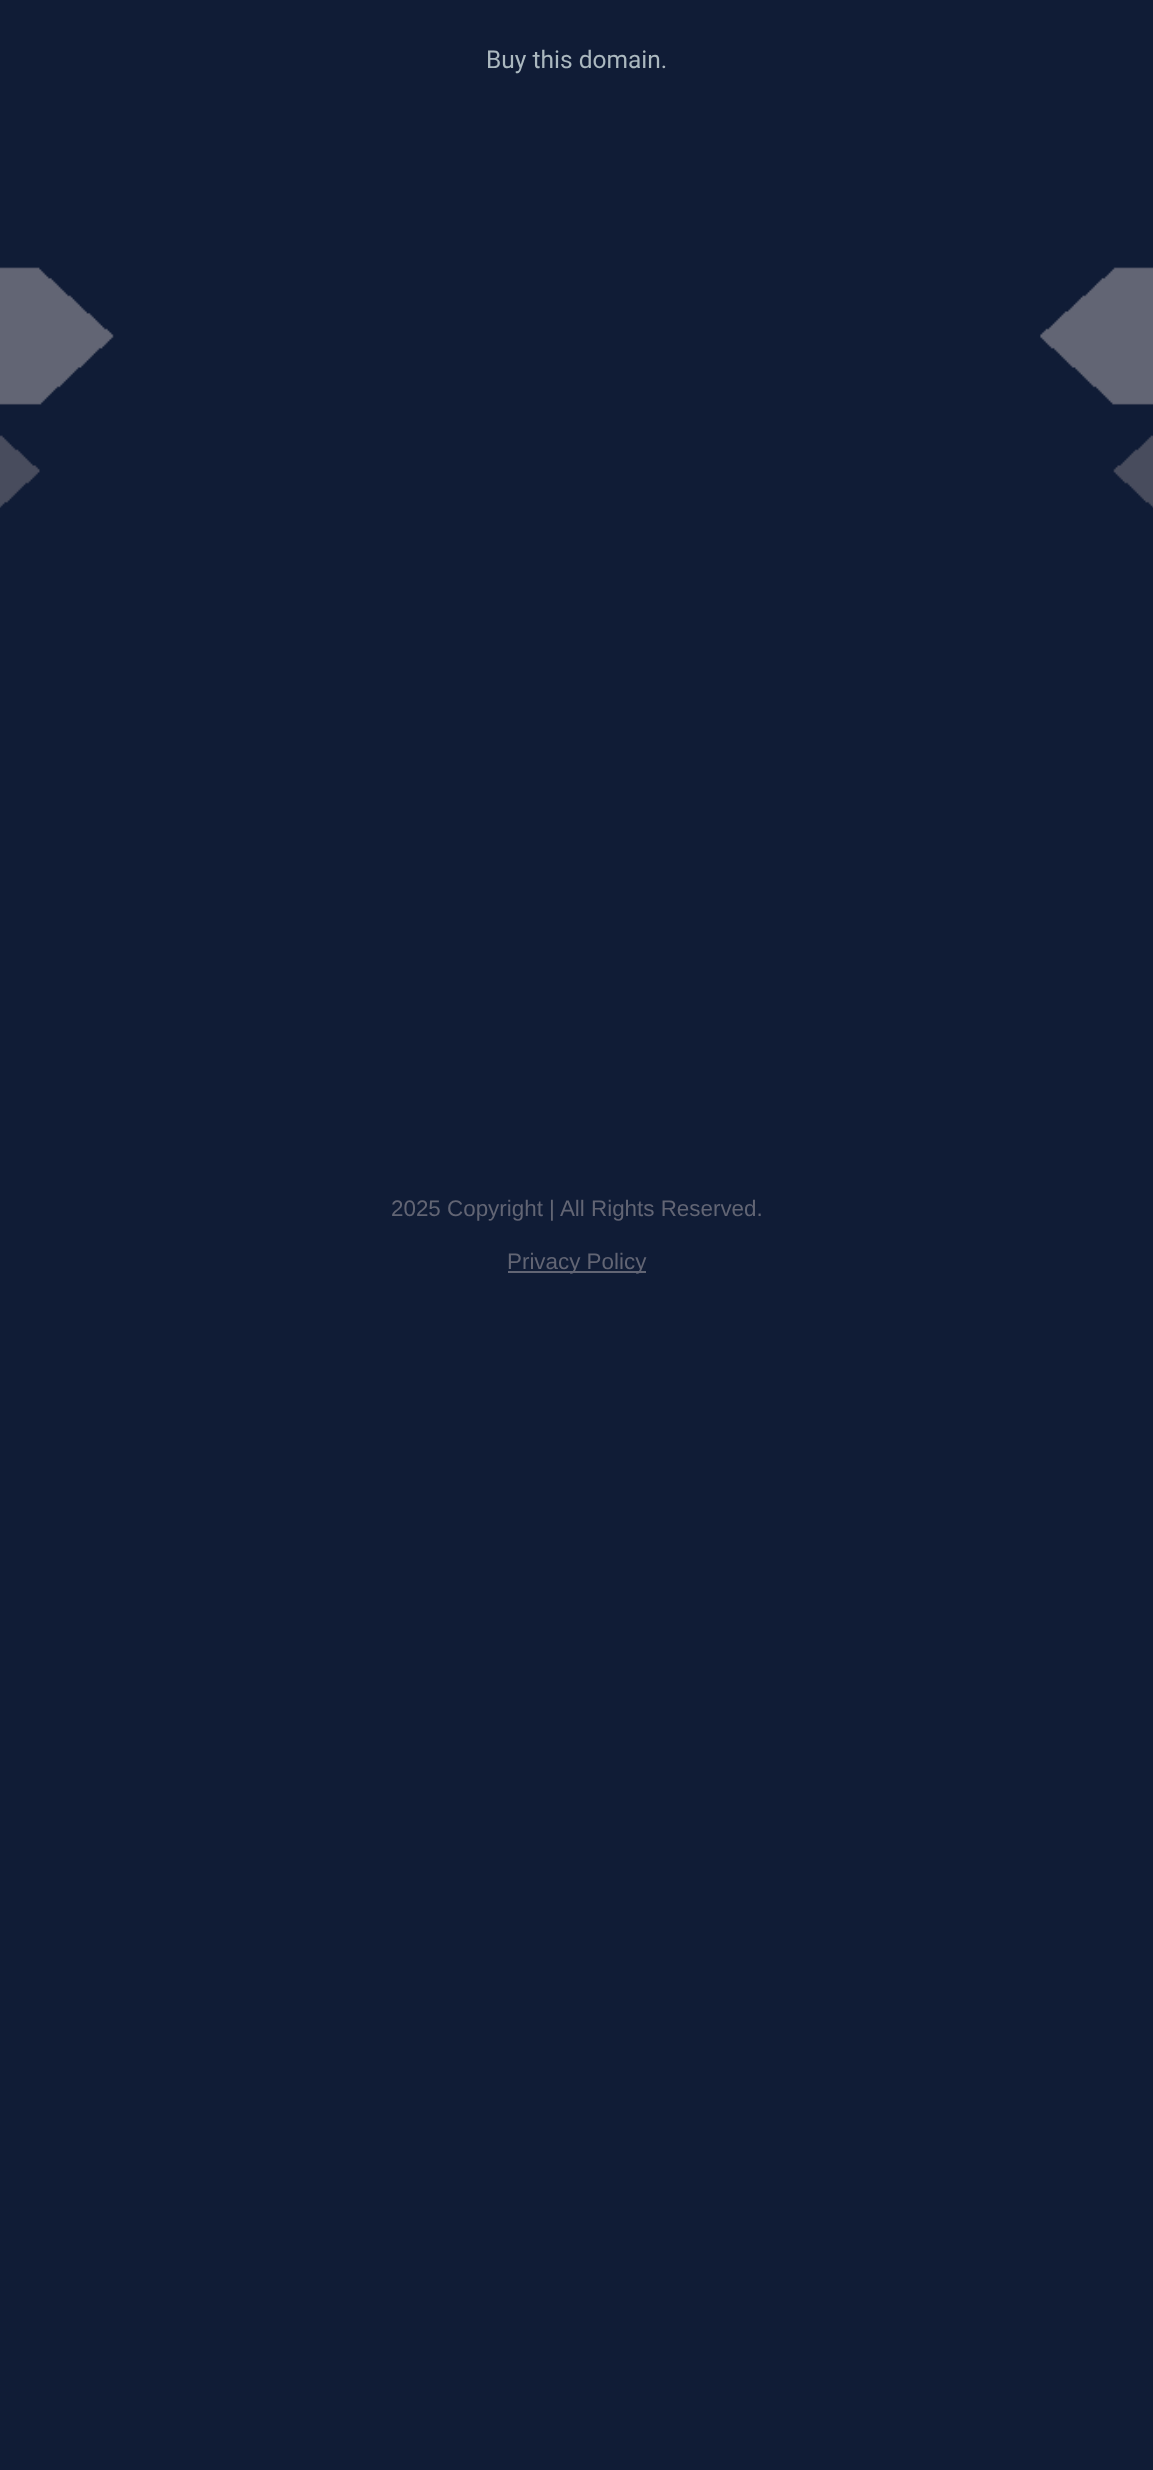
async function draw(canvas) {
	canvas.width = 1153;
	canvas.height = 2470;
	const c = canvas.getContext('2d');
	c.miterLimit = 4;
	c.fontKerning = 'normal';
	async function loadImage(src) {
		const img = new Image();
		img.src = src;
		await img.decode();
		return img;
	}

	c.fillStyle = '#101c36';
	c.fillRect(0, 0, 1153, 2470);
	c.font = '24.5px Roboto';
	c.fillStyle = '#abb8bf';
	c.fillText('Buy this domain.', 486, 68);
	c.drawImage(await loadImage('img1.png'), 0, 267, 1153, 241);
	c.font = '22.4px Liberation Sans';
	c.fillStyle = '#626574';
	c.fillText('2025 Copyright | All Rights Reserved.', 391, 1216);
	c.fillRect(508, 1271, 138, 2);
	c.fillText('Privacy Policy', 507, 1269);
}

draw(document.querySelector('canvas'));
